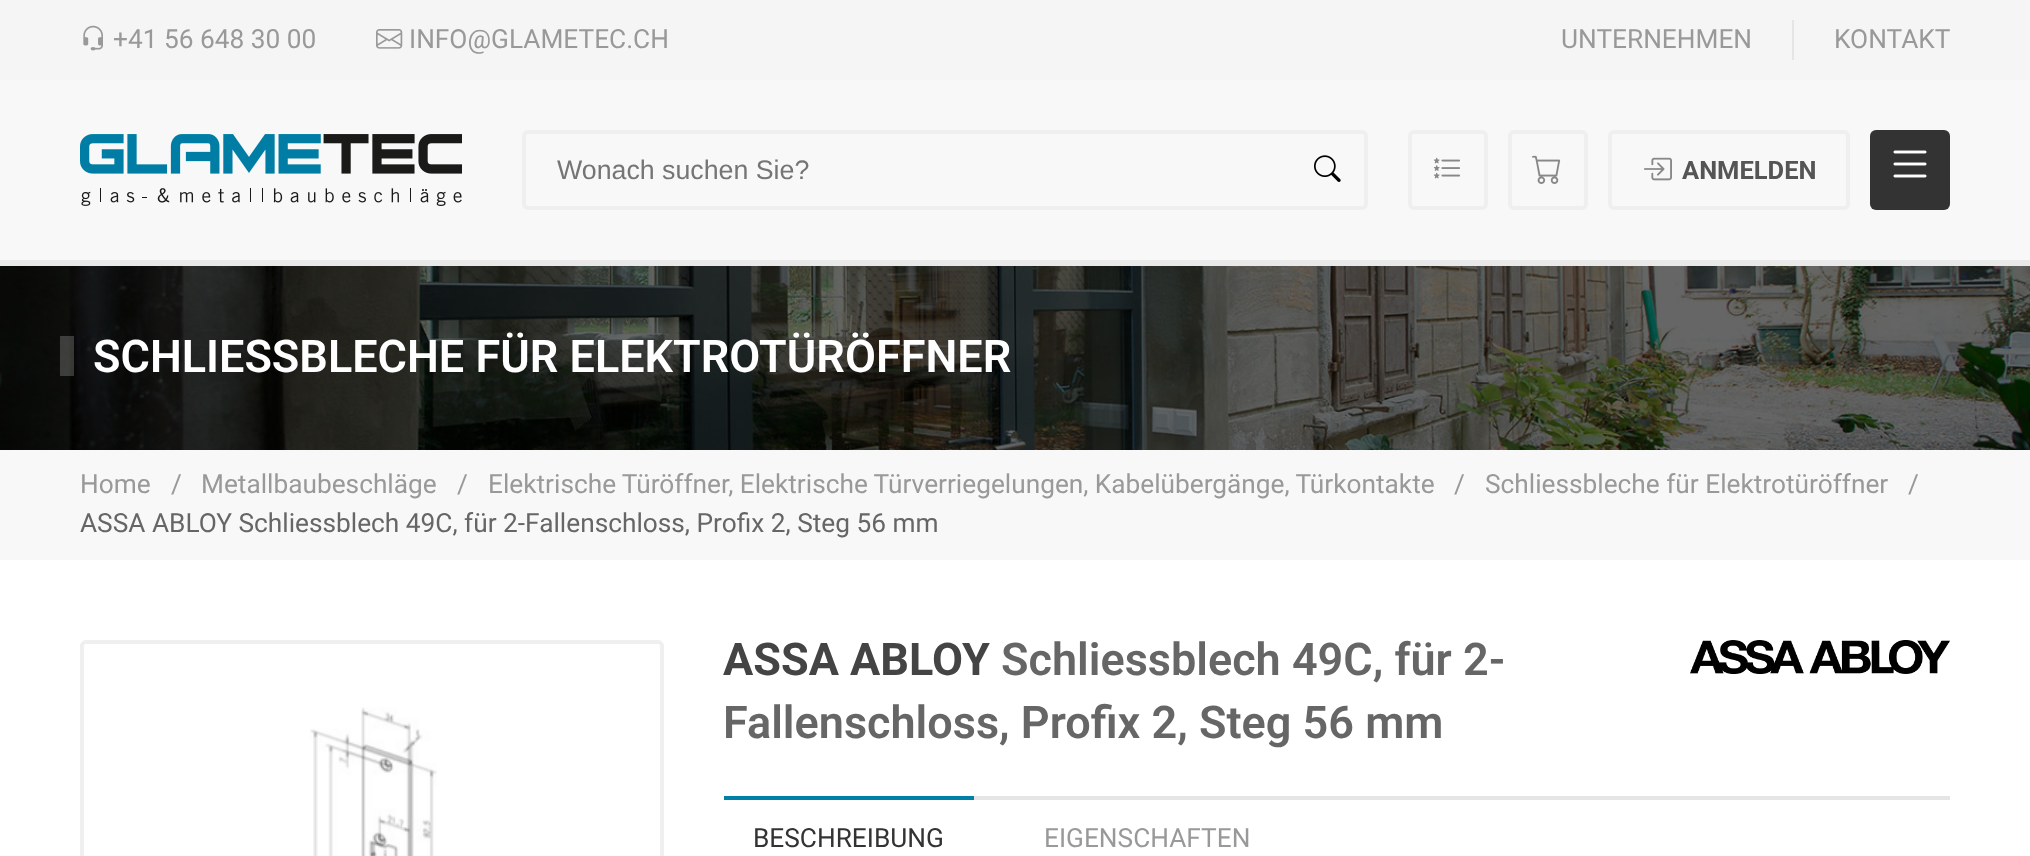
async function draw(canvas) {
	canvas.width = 2030;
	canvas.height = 856;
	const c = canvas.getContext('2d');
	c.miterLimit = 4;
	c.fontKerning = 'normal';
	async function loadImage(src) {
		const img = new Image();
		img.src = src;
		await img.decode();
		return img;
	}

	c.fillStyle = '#fff';
	c.fillRect(0, 0, 2030, 856);
	c.fillStyle = '#f5f5f5';
	c.fillRect(0, 0, 2030, 80);
	c.drawImage(await loadImage('img1.png'), 83, 25, 20, 26);
	c.font = '26.25px Roboto';
	c.fillStyle = '#999';
	c.fillText('+41 56 648 30 00', 113, 48);
	c.drawImage(await loadImage('img2.png'), 376, 29, 27, 20);
	c.fillText('INFO@GLAMETEC.CH', 409, 48);
	c.fillText('UNTERNEHMEN', 1561, 48);
	c.fillStyle = '#e5e5e5';
	c.fillRect(1792, 20, 2, 40);
	c.fillStyle = '#999';
	c.fillText('KONTAKT', 1834, 48);
	c.fillStyle = '#e9e9e9';
	c.fillRect(0, 260, 2030, 6);
	c.fillStyle = '#f8f8f8';
	c.fillRect(0, 80, 2030, 180);
	c.drawImage(await loadImage('img3.png'), 80, 134, 382, 72);
	c.beginPath();
	c.roundRect(524, 132, 842, 76, 4);
	c.strokeStyle = '#efefef';
	c.lineWidth = 4;
	c.stroke();
	c.font = '26.75px Liberation Sans';
	c.fillStyle = '#757575';
	c.fillText('Wonach suchen Sie?', 557, 179);
	c.drawImage(await loadImage('img4.png'), 1314, 155, 27, 27);
	c.beginPath();
	c.roundRect(1410, 132, 76, 76, 4);
	c.stroke();
	c.drawImage(await loadImage('img5.png'), 1433, 157, 27, 22);
	c.beginPath();
	c.roundRect(1510, 132, 76, 76, 4);
	c.stroke();
	c.drawImage(await loadImage('img6.png'), 1532, 155, 29, 29);
	c.beginPath();
	c.roundRect(1610, 132, 238, 76, 4);
	c.stroke();
	c.drawImage(await loadImage('img7.png'), 1644, 157, 28, 24);
	c.font = 'bold 25.5px Roboto';
	c.fillStyle = '#555';
	c.fillText('ANMELDEN', 1682, 179);
	c.fillStyle = '#333';
	c.beginPath();
	c.roundRect(1870, 130, 80, 80, 6);
	c.fill();
	c.drawImage(await loadImage('img8.png'), 1893, 150, 34, 28);
	c.drawImage(await loadImage('img9.png'), 0, 266, 2030, 184);
	c.fillStyle = '#ffffff33';
	c.fillRect(60, 336, 14, 40);
	c.font = '600 45px Roboto';
	c.fillStyle = '#fff';
	c.fillText('SCHLIESSBLECHE FÜR ELEKTROTÜRÖFFNER', 93, 372);
	c.fillStyle = '#f8f8f8';
	c.fillRect(0, 450, 2030, 110);
	c.font = '26.25px Roboto';
	c.fillStyle = '#999';
	for (const [text, x, y] of [
		['/', 171, 493],
		['Metallbaubeschläge', 201, 493],
		['/', 457, 493],
	]) {
		c.fillText(text, x, y);
	}
	c.wordSpacing = '-0.25px';
	c.fillText('Elektrische Türöffner, Elektrische Türverriegelungen, Kabelübergänge, Türkontakte', 488, 493);
	c.wordSpacing = '0px';
	for (const [text, x, y] of [
		['/', 1454, 493],
		['Schliessbleche für Elektrotüröffner', 1485, 493],
		['/', 1908, 493],
	]) {
		c.fillText(text, x, y);
	}
	c.fillStyle = '#666';
	c.fillText('ASSA ABLOY Schliessblech 49C, für 2-Fallenschloss, Profix 2, Steg 56 mm', 80, 532);
	c.fillStyle = '#999';
	c.fillText('Home', 80, 493);
	c.beginPath();
	c.roundRect(82, 642, 580, 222, 4);
	c.stroke();
	c.drawImage(await loadImage('img10.png'), 310, 707, 127, 149);
	c.font = 'bold 45px Roboto';
	c.fillStyle = '#444';
	c.fillText('ASSA ABLOY', 723, 675);
	c.font = '600 45px Roboto';
	c.fillStyle = '#666';
	c.fillText('Schliessblech 49C, für 2-', 1001, 675);
	c.fillText('Fallenschloss, Profix 2, Steg 56 mm', 723, 738);
	c.drawImage(await loadImage('img11.png'), 1690, 640, 260, 34);
	c.fillStyle = '#e5e5e5';
	c.fillRect(974, 796, 976, 4);
	c.fillStyle = '#0080a6';
	c.fillRect(724, 796, 250, 4);
	c.font = '26.25px Roboto';
	c.fillStyle = '#333';
	c.fillText('BESCHREIBUNG', 753, 847);
	c.fillStyle = '#999';
	c.fillText('EIGENSCHAFTEN', 1044, 847);
}

draw(document.querySelector('canvas'));
